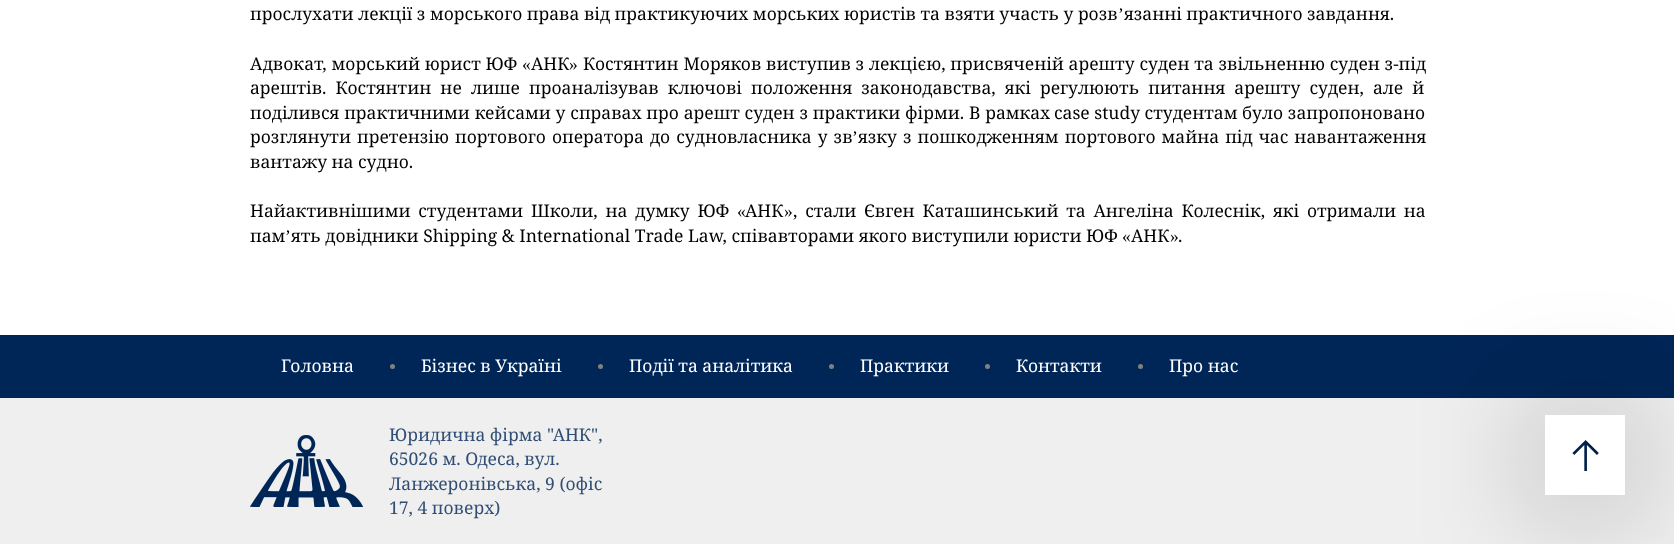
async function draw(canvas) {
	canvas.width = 1674;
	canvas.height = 544;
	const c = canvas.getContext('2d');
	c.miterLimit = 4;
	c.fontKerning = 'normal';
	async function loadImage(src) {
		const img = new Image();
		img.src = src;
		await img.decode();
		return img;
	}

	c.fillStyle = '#fff';
	c.fillRect(0, 0, 1674, 544);
	c.font = '17.5px Noto Serif';
	c.fillStyle = '#000';
	c.fillText('прослухати лекції з морського права від практикуючих морських юристів та взяти участь у розв', 250, 20);
	c.font = '17.5px Liberation Serif';
	c.fillText('’', 1118, 20);
	c.font = '17.5px Noto Serif';
	c.fillText('язанні практичного завдання.', 1124, 20);
	c.wordSpacing = '0.25px';
	c.fillText('Адвокат, морський юрист ЮФ', 250, 70);
	c.wordSpacing = '0px';
	c.font = '17.5px Liberation Serif';
	c.fillText('«', 522, 70);
	c.font = '17.5px Noto Serif';
	c.fillText('АНК', 531, 70);
	c.font = '17.5px Liberation Serif';
	c.fillText('»', 569, 70);
	c.wordSpacing = '0.25px';
	c.font = '17.5px Noto Serif';
	c.fillText('Костянтин Моряков виступив з лекцією, присвяченій арешту суден та звільненню суден з-під', 583, 70);
	c.wordSpacing = '4.6px';
	c.fillText('арештів. Костянтин не лише проаналізував ключові положення законодавства, які регулюють питання арешту суден, але й', 250, 94);
	c.wordSpacing = '0.25px';
	c.fillText('поділився практичними кейсами у справах про арешт суден з практики фірми. В рамках', 250, 119);
	c.wordSpacing = '0px';
	c.fillText('case study студентам', 1054, 119);
	c.wordSpacing = '0.25px';
	c.fillText('було запропоновано', 1242, 119);
	c.wordSpacing = '1.5px';
	c.fillText('розглянути претензію портового оператора до судновласника у зв', 250, 143);
	c.wordSpacing = '0px';
	c.font = '17.5px Liberation Serif';
	c.fillText('’', 852, 143);
	c.wordSpacing = '1.5px';
	c.font = '17.5px Noto Serif';
	c.fillText('язку з пошкодженням портового майна під час навантаження', 858, 143);
	c.wordSpacing = '0px';
	c.fillText('вантажу на судно.', 250, 168);
	c.wordSpacing = '3.25px';
	c.fillText('Найактивнішими студентами Школи, на думку ЮФ', 250, 217);
	c.wordSpacing = '0px';
	c.font = '17.5px Liberation Serif';
	c.fillText('«', 737, 217);
	c.font = '17.5px Noto Serif';
	c.fillText('АНК', 745, 217);
	c.font = '17.5px Liberation Serif';
	c.fillText('»', 784, 217);
	c.wordSpacing = '3.25px';
	c.font = '17.5px Noto Serif';
	c.fillText(', стали Євген Каташинський та Ангеліна Колеснік, які отримали на', 793, 217);
	c.wordSpacing = '0px';
	c.fillText('пам', 250, 242);
	c.font = '17.5px Liberation Serif';
	c.fillText('’', 285, 242);
	c.font = '17.5px Noto Serif';
	c.fillText('ять довідники Shipping & International Trade Law, співавторами якого виступили юристи ЮФ', 291, 242);
	c.font = '17.5px Liberation Serif';
	c.fillText('«', 1122, 242);
	c.font = '17.5px Noto Serif';
	c.fillText('АНК', 1131, 242);
	c.font = '17.5px Liberation Serif';
	c.fillText('»', 1170, 242);
	c.font = '17.5px Noto Serif';
	c.fillText('.', 1178, 242);
	c.fillStyle = '#002657';
	c.fillRect(0, 335, 1674, 63);
	c.fillStyle = '#fff';
	c.fillText('Головна', 281, 372);
	c.fillStyle = '#808080';
	c.beginPath();
	c.arc(392.5, 366.5, 2.5, 0, 2 * Math.PI);
	c.fill();
	c.fillStyle = '#fff';
	c.fillText('Бізнес в Україні', 421, 372);
	c.fillStyle = '#808080';
	c.beginPath();
	c.arc(600.5, 366.5, 2.5, 0, 2 * Math.PI);
	c.fill();
	c.fillStyle = '#fff';
	c.fillText('Події та аналітика', 629, 372);
	c.fillStyle = '#808080';
	c.beginPath();
	c.arc(831.5, 366.5, 2.5, 0, 2 * Math.PI);
	c.fill();
	c.fillStyle = '#fff';
	c.fillText('Практики', 860, 372);
	c.fillStyle = '#808080';
	c.beginPath();
	c.arc(987.5, 366.5, 2.5, 0, 2 * Math.PI);
	c.fill();
	c.fillStyle = '#fff';
	c.fillText('Контакти', 1016, 372);
	c.fillStyle = '#808080';
	c.beginPath();
	c.arc(1140.5, 366.5, 2.5, 0, 2 * Math.PI);
	c.fill();
	c.fillStyle = '#fff';
	c.fillText('Про нас', 1169, 372);
	c.fillStyle = '#efefef';
	c.fillRect(0, 398, 1674, 146);
	c.drawImage(await loadImage('img1.png'), 250, 435, 114, 72);
	c.fillStyle = '#304e75';
	for (const [text, x, y] of [
		['Юридична фірма "АНК",', 389, 441],
		['65026 м. Одеса, вул.', 389, 465],
		['Ланжеронівська, 9 (офіс', 389, 490],
		['17, 4 поверх)', 389, 514],
	]) {
		c.fillText(text, x, y);
	}
	c.fillStyle = '#00000066';
	c.filter = 'blur(62.5px)';
	c.beginPath();
	c.rect(1545, 420, 80, 80);
	c.fill();
	c.filter = 'none';
	c.fillStyle = '#fff';
	c.fillRect(1545, 415, 80, 80);
	c.drawImage(await loadImage('img2.png'), 1572, 440, 27, 31);
}

draw(document.querySelector('canvas'));
